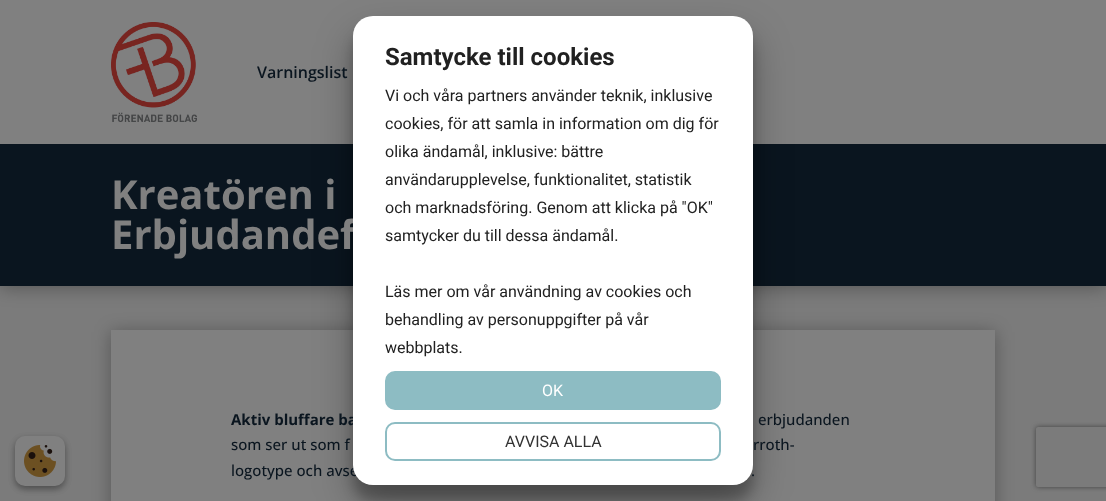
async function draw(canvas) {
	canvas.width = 1106;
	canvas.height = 501;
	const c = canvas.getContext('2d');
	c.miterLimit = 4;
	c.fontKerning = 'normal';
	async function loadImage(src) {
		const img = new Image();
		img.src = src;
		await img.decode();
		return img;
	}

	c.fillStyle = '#7b7b7b';
	c.fillRect(0, 0, 1106, 501);
	c.fillStyle = '#0000004d';
	c.filter = 'blur(9px)';
	c.beginPath();
	c.rect(0, 146, 1106, 142);
	c.fill();
	c.filter = 'none';
	c.fillStyle = '#808080';
	c.fillRect(0, 0, 1106, 144);
	c.fillStyle = '#0a151f';
	c.fillRect(0, 144, 1106, 142);
	c.fillStyle = '#0000004d';
	c.filter = 'blur(9px)';
	c.beginPath();
	c.rect(111, 332, 884, 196);
	c.fill();
	c.filter = 'none';
	c.fillStyle = '#808080';
	c.fillRect(111, 330, 884, 171);
	c.fillStyle = '#00000038';
	c.filter = 'blur(6px)';
	c.beginPath();
	c.roundRect(353, 31, 400, 469, 20);
	c.fill();
	c.filter = 'none';
	c.fillStyle = '#0000004d';
	c.filter = 'blur(19px)';
	c.beginPath();
	c.roundRect(353, 35, 400, 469, 20);
	c.fill();
	c.filter = 'none';
	c.font = 'bold 40px Open Sans';
	c.fillStyle = '#808080';
	c.fillText('Erbjudandef', 111, 249);
	c.font = 'bold 15px Open Sans';
	c.fillStyle = '#0a151f';
	c.fillText('Aktiv bluffare ba', 231, 425);
	c.font = '500 15px Open Sans';
	c.fillText('logotype och avse', 231, 476);
	c.fillText('.', 751, 476);
	c.fillStyle = '#fff';
	c.beginPath();
	c.roundRect(353, 16, 400, 469, 20);
	c.fill();
	c.font = 'bold 24px Roboto';
	c.fillStyle = '#212121';
	c.fillText('Samtycke till cookies', 385, 65);
	c.font = '16px Roboto';
	for (const [text, x, y] of [
		['Vi och våra partners använder teknik, inklusive', 385, 101],
		['cookies, för att samla in information om dig för', 385, 129],
		['olika ändamål, inklusive: bättre', 385, 157],
		['användarupplevelse, funktionalitet, statistik', 385, 185],
		['och marknadsföring. Genom att klicka på "OK"', 385, 213],
		['samtycker du till dessa ändamål.', 385, 241],
		['Läs mer om vår användning av cookies och', 385, 297],
		['behandling av personuppgifter på vår', 385, 325],
		['webbplats.', 385, 353],
	]) {
		c.fillText(text, x, y);
	}
	c.fillStyle = '#8dbcc3';
	c.beginPath();
	c.roundRect(386, 372, 334, 37, 9);
	c.fill();
	c.strokeStyle = '#8dbcc3';
	c.lineWidth = 2;
	c.stroke();
	c.fillStyle = '#fff';
	c.fillText('OK', 542, 396);
	c.beginPath();
	c.roundRect(386, 423, 334, 37, 9);
	c.stroke();
	c.fillStyle = '#333';
	c.fillText('AVVISA ALLA', 505, 447);
	c.fillStyle = '#0000003b';
	c.filter = 'blur(3px)';
	c.beginPath();
	c.roundRect(15, 439, 50, 50, 10);
	c.fill();
	c.filter = 'none';
	c.fillStyle = '#00000029';
	c.filter = 'blur(3px)';
	c.beginPath();
	c.roundRect(15, 439, 50, 50, 10);
	c.fill();
	c.filter = 'none';
	c.fillStyle = '#808080';
	c.beginPath();
	c.roundRect(15, 436, 50, 50, 10);
	c.fill();
	c.drawImage(await loadImage('img1.png'), 24, 445, 32, 32);
	c.drawImage(await loadImage('img2.png'), 111, 22, 86, 100);
	c.font = '600 16px Open Sans';
	c.fillStyle = '#0a151f';
	c.fillText('Varningslist', 257, 78);
	c.font = 'bold 40px Open Sans';
	c.fillStyle = '#808080';
	c.fillText('Kreatören i', 111, 209);
	c.font = '500 15px Open Sans';
	c.fillStyle = '#0a151f';
	for (const [text, x, y] of [
		['erbjudanden', 758, 425],
		['som ser ut som f', 231, 450],
		['rroth-', 753, 450],
	]) {
		c.fillText(text, x, y);
	}
	c.save();
	c.beginPath();
	c.moveTo(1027, 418);
	c.lineTo(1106, 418);
	c.lineTo(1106, 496);
	c.lineTo(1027, 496);
	c.closePath();
	c.moveTo(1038, 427);
	c.lineTo(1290, 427);
	c.bezierCurveTo(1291, 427, 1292, 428, 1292, 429);
	c.lineTo(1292, 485);
	c.bezierCurveTo(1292, 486, 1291, 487, 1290, 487);
	c.lineTo(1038, 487);
	c.bezierCurveTo(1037, 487, 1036, 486, 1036, 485);
	c.lineTo(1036, 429);
	c.bezierCurveTo(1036, 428, 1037, 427, 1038, 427);
	c.closePath();
	c.clip('evenodd');
	c.fillStyle = '#404040';
	c.filter = 'blur(2.5px)';
	c.beginPath();
	c.roundRect(1036, 427, 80, 60, 2);
	c.fill();
	c.filter = 'none';
	c.restore();
}

draw(document.querySelector('canvas'));
